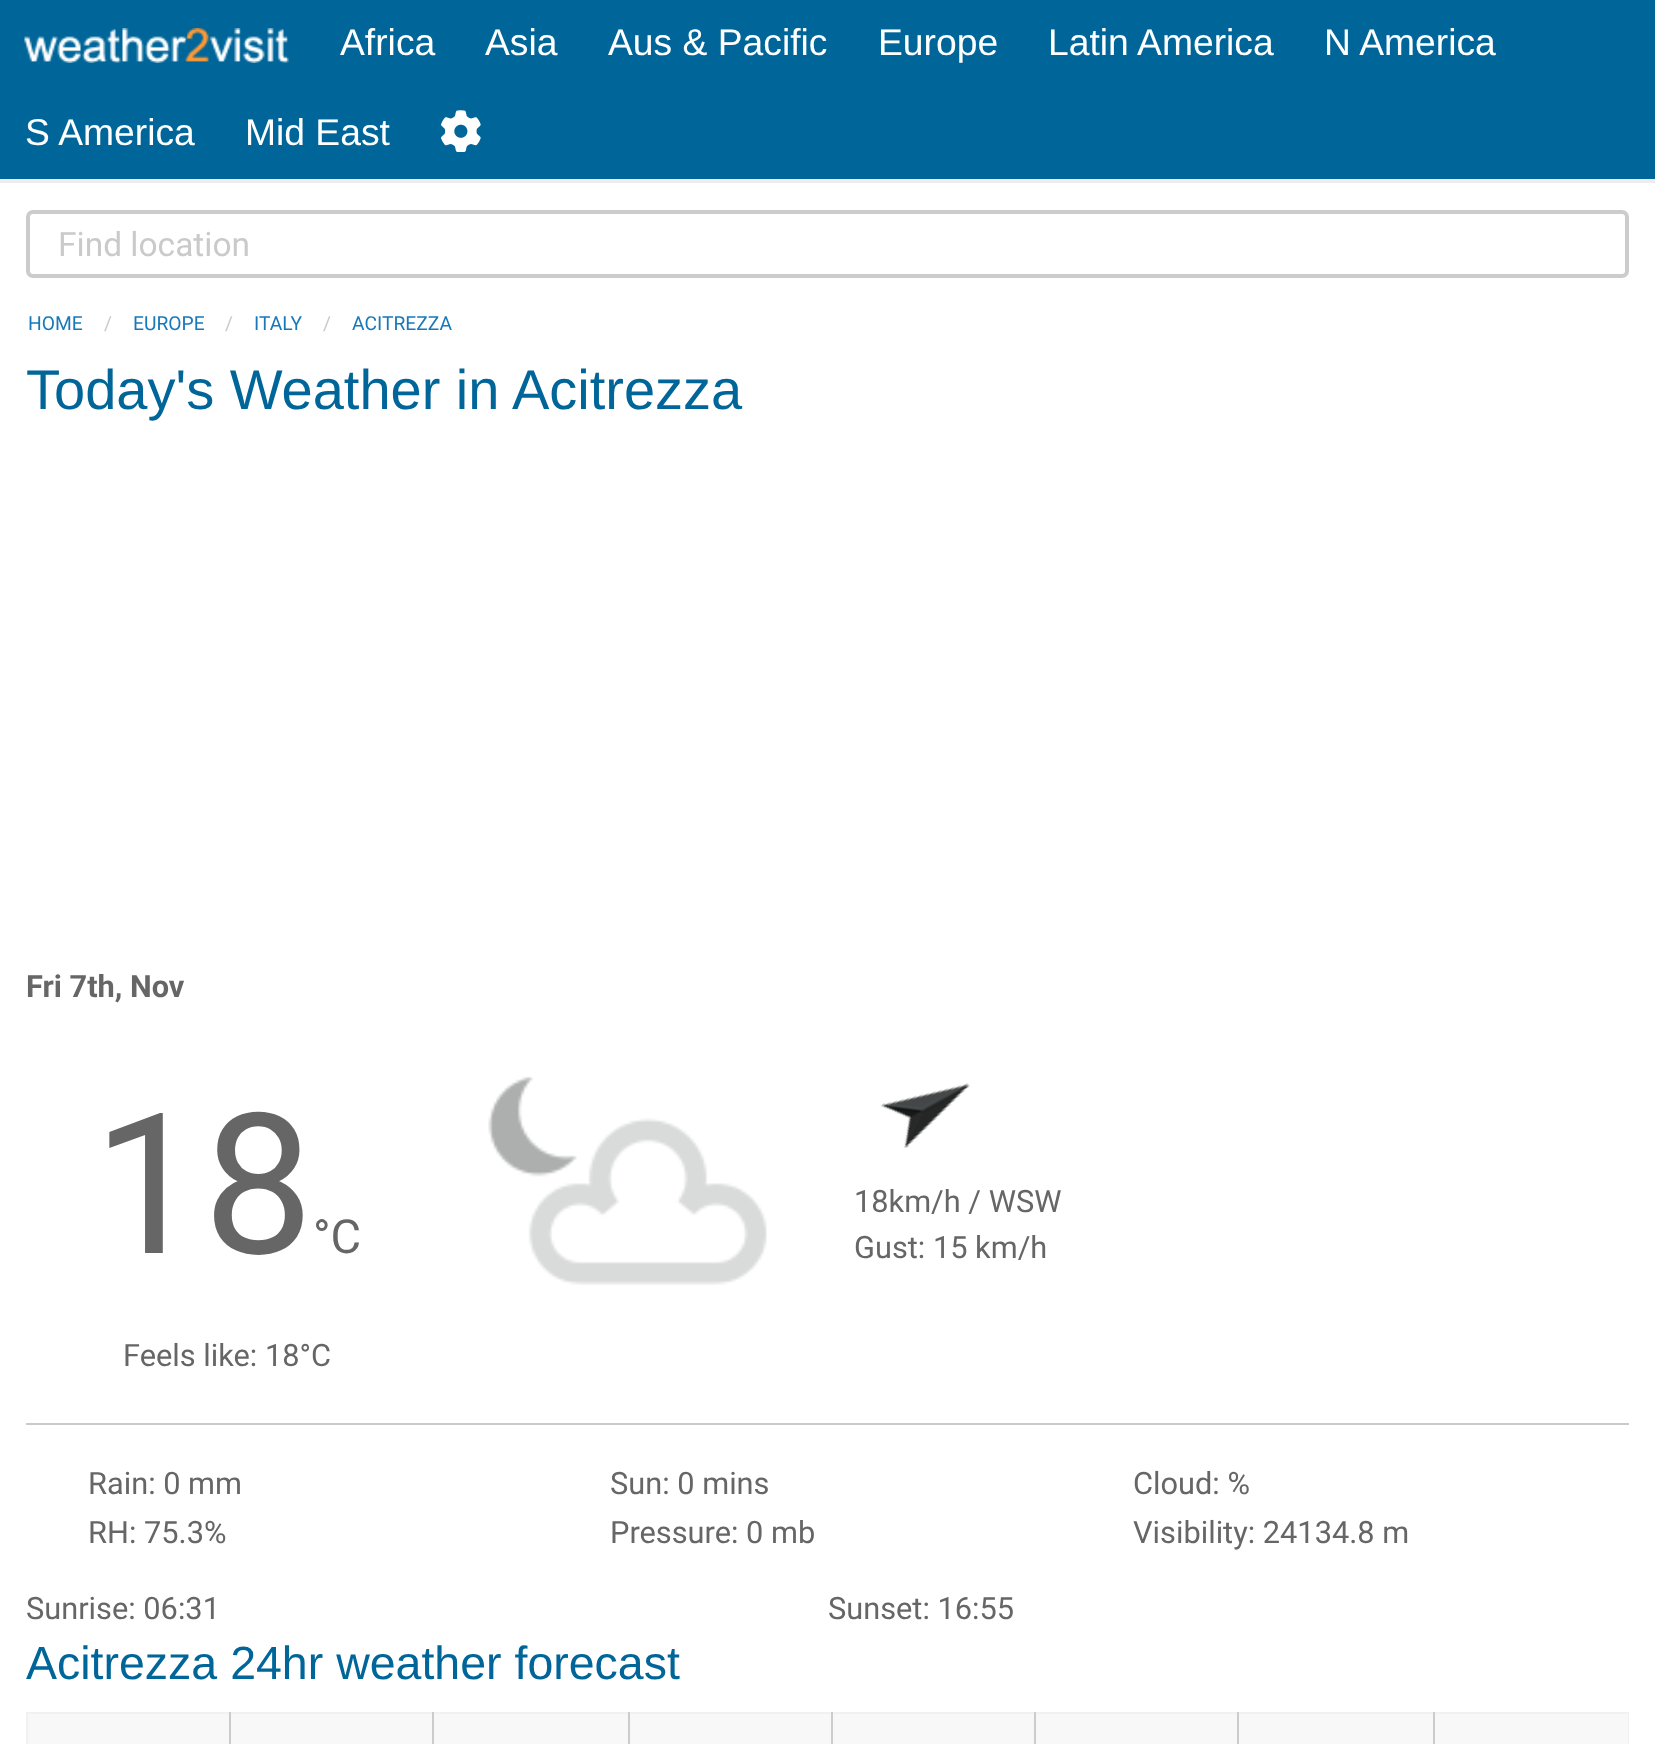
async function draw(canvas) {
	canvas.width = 1655;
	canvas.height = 1744;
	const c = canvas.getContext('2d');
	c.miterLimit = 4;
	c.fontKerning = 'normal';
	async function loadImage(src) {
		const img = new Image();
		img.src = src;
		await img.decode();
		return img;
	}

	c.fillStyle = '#fff';
	c.fillRect(0, 0, 1655, 1744);
	c.fillStyle = '#069';
	c.fillRect(0, 0, 1655, 179);
	c.fillStyle = '#ededed';
	c.fillRect(0, 179, 1655, 4);
	c.drawImage(await loadImage('img1.png'), 24, 28, 265, 35);
	c.font = '37.25px Liberation Sans';
	c.fillStyle = '#fff';
	for (const [text, x, y] of [
		['Africa', 340, 55],
		['Asia', 485, 55],
		['Aus & Pacific', 608, 55],
		['Europe', 878, 55],
		['Latin America', 1048, 55],
		['N America', 1324, 55],
		['S America', 25, 145],
		['Mid East', 245, 145],
	]) {
		c.fillText(text, x, y);
	}
	c.drawImage(await loadImage('img2.png'), 441, 110, 40, 42);
	c.beginPath();
	c.roundRect(28, 212, 1599, 64, 5);
	c.strokeStyle = '#ccc';
	c.lineWidth = 4;
	c.stroke();
	c.font = '33.5px Roboto';
	c.fillStyle = '#cacaca';
	c.fillText('Find location', 58, 256);
	c.font = '19.25px Roboto';
	c.fillStyle = '#1779ba';
	c.fillText('HOME', 28, 330);
	c.fillStyle = '#cacaca';
	c.fillText('/', 104, 330);
	c.fillStyle = '#1779ba';
	c.fillText('EUROPE', 133, 330);
	c.fillStyle = '#cacaca';
	c.fillText('/', 225, 330);
	c.fillStyle = '#1779ba';
	c.fillText('ITALY', 254, 330);
	c.fillStyle = '#cacaca';
	c.fillText('/', 323, 330);
	c.fillStyle = '#1779ba';
	c.fillText('ACITREZZA', 352, 330);
	c.font = '56px Liberation Sans';
	c.fillStyle = '#069';
	c.fillText('Today\'s Weather in Acitrezza', 26, 409);
	c.font = 'bold 30.75px Roboto';
	c.fillStyle = '#666';
	c.fillText('Fri 7th, Nov', 26, 997);
	c.font = '196px Roboto';
	c.fillText('18', 93, 1253);
	c.font = '47px Roboto';
	c.fillText('°C', 313, 1253);
	c.font = '30.75px Roboto';
	c.fillText('Feels like: 18°C', 123, 1366);
	c.drawImage(await loadImage('img3.png'), 488, 1076, 279, 209);
	c.drawImage(await loadImage('img4.png'), 880, 1083, 90, 66);
	c.fillText('18km/h / WSW', 854, 1212);
	c.fillText('Gust: 15 km/h', 854, 1258);
	c.fillStyle = '#cacaca';
	c.fillRect(26, 1423, 1603, 2);
	c.fillStyle = '#666';
	for (const [text, x, y] of [
		['Rain: 0 mm', 88, 1494],
		['Sun: 0 mins', 610, 1494],
		['Cloud: %', 1133, 1494],
		['RH: 75.3%', 88, 1543],
		['Pressure: 0 mb', 610, 1543],
		['Visibility: 24134.8 m', 1133, 1543],
		['Sunrise: 06:31', 26, 1619],
		['Sunset: 16:55', 828, 1619],
	]) {
		c.fillText(text, x, y);
	}
	c.font = '46.5px Liberation Sans';
	c.fillStyle = '#069';
	c.fillText('Acitrezza 24hr weather forecast', 26, 1679);
	for (const [x, y, w, h, color] of [
		[28, 1714, 1600, 30, '#f8f8f8'],
		[26, 1712, 1603, 2, '#f1f1f1'],
		[1628, 1712, 1, 32, '#f1f1f1'],
		[26, 1712, 2, 32, '#f1f1f1'],
		[229, 1712, 2, 32, '#ccc'],
		[432, 1712, 2, 32, '#ccc'],
		[628, 1712, 2, 32, '#ccc'],
		[831, 1712, 2, 32, '#ccc'],
		[1034, 1712, 2, 32, '#ccc'],
		[1237, 1712, 2, 32, '#ccc'],
		[1433, 1712, 2, 32, '#ccc'],
	]) {
		c.fillStyle = color;
		c.fillRect(x, y, w, h);
	}
}

draw(document.querySelector('canvas'));
